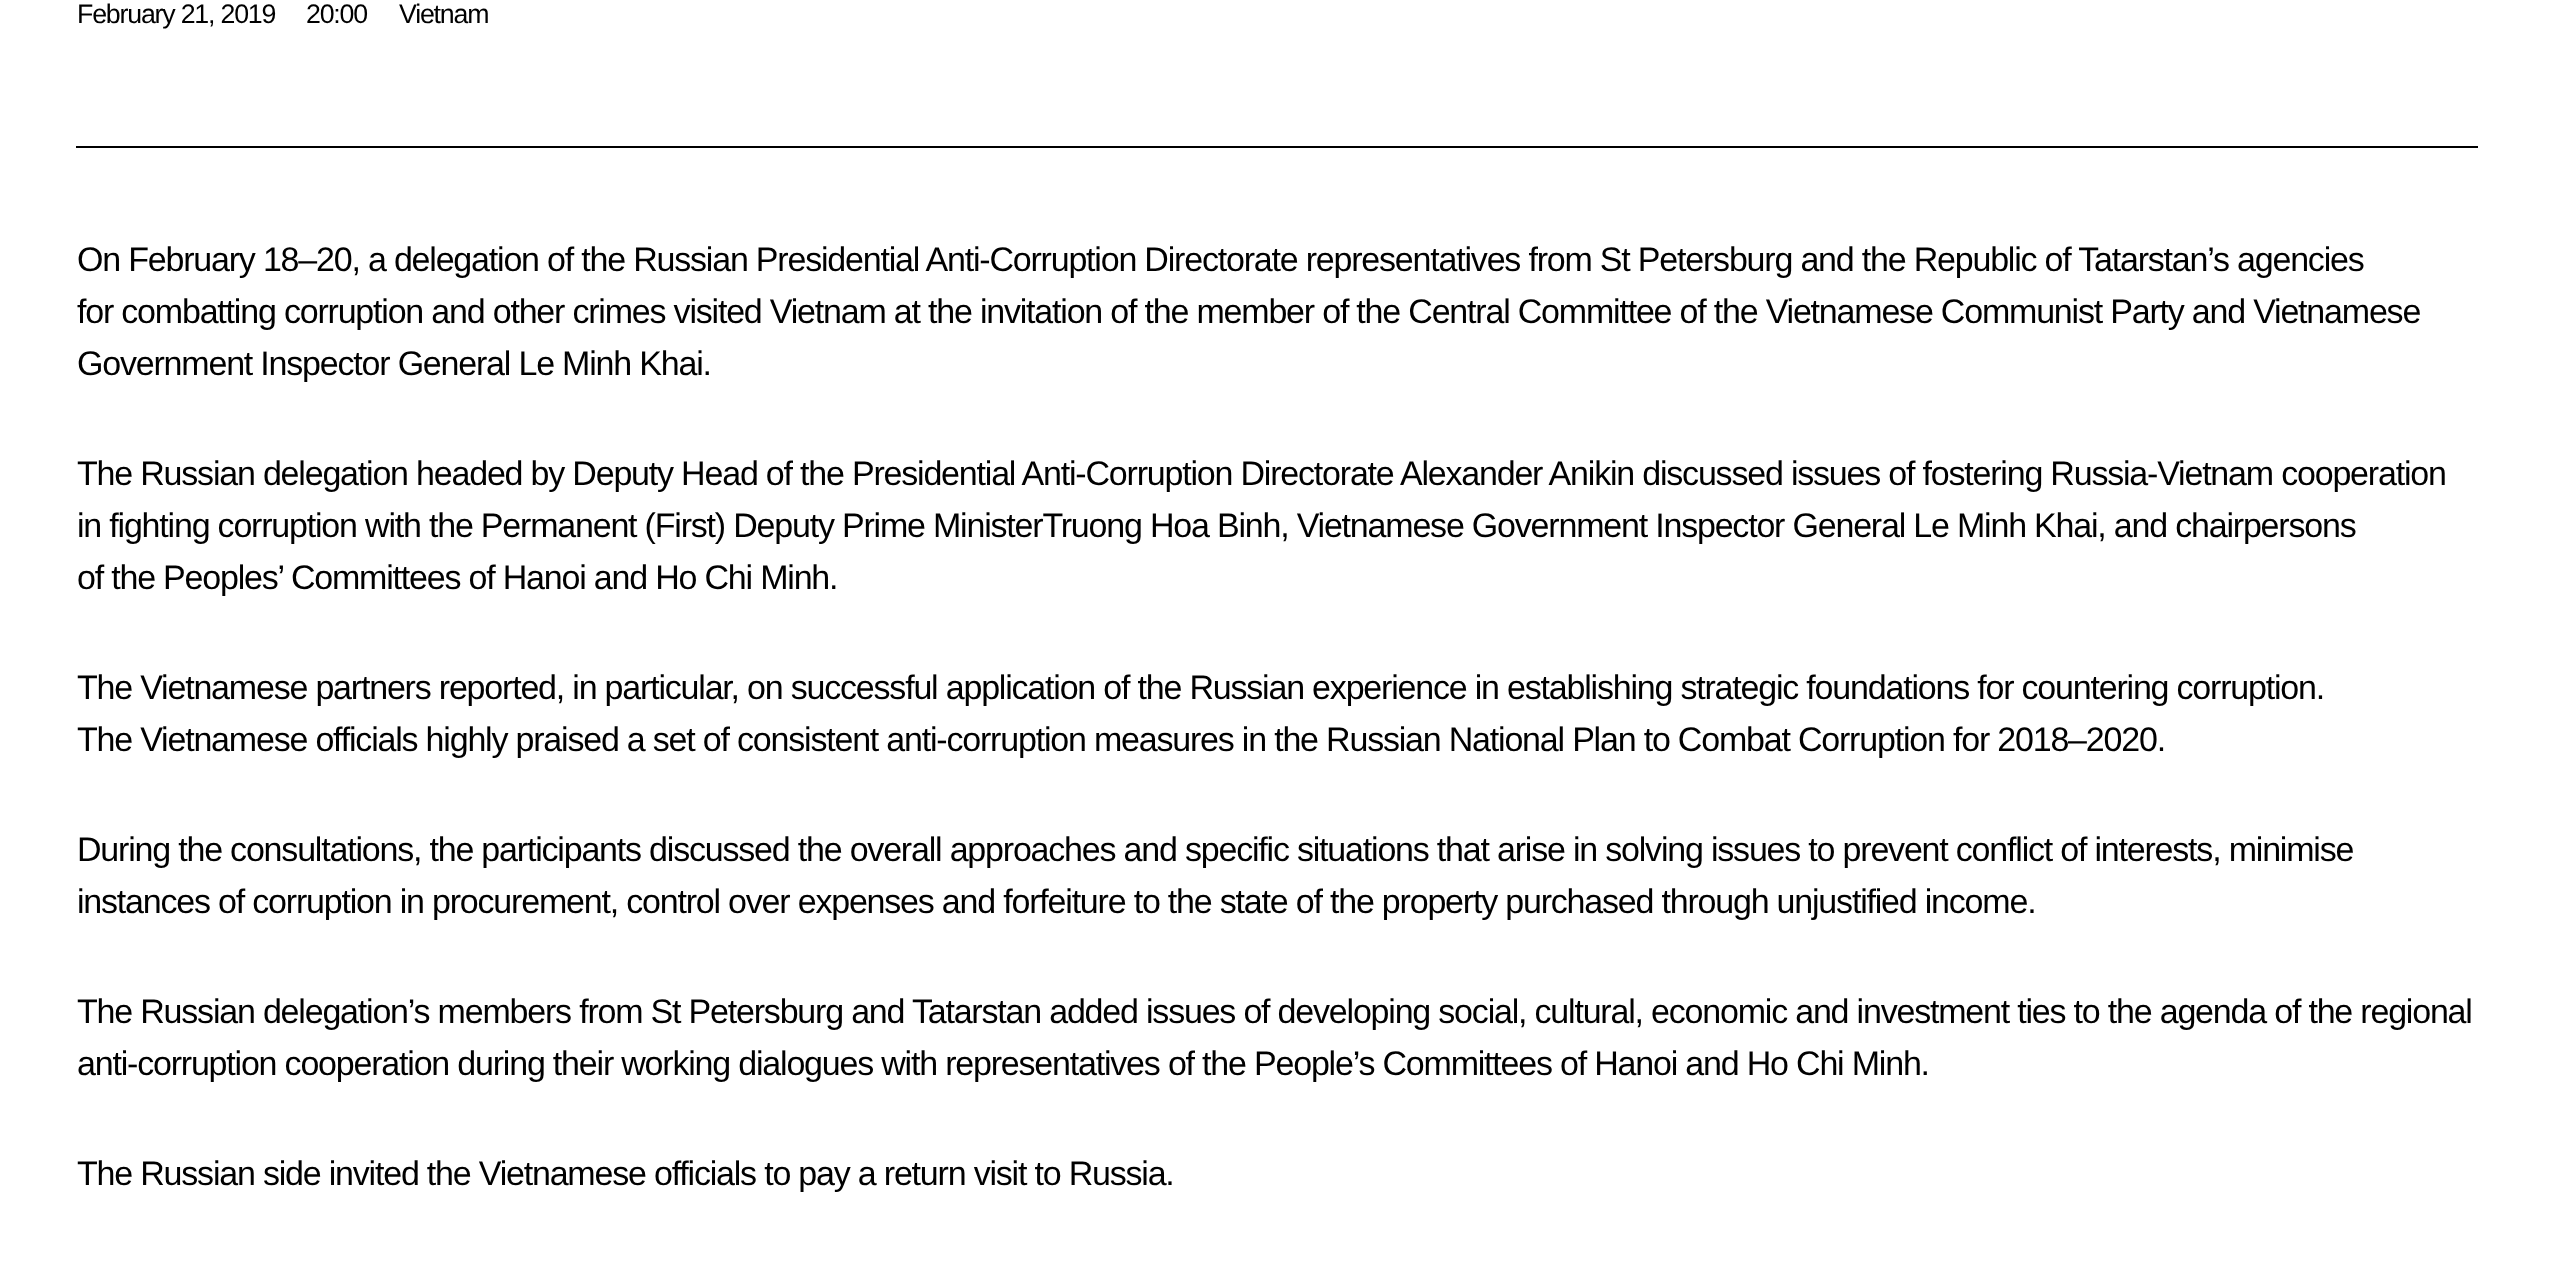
async function draw(canvas) {
	canvas.width = 2553;
	canvas.height = 1261;
	const c = canvas.getContext('2d');
	c.miterLimit = 4;
	c.fontKerning = 'normal';

	c.fillStyle = '#fff';
	c.fillRect(0, 0, 2553, 1261);
	c.fillStyle = '#000';
	c.fillRect(76, 146, 2402, 2);
	c.letterSpacing = '-1.2px';
	c.font = '26.75px Liberation Sans';
	for (const [text, x, y] of [
		['February 21, 2019', 77, 23],
		['20:00', 306, 23],
		['Vietnam', 399, 23],
	]) {
		c.fillText(text, x, y);
	}
	c.font = '34px Liberation Sans';
	for (const [text, x, y] of [
		['On February 18–20, a delegation of the Russian Presidential Anti-Corruption Directorate representatives from St Petersburg and the Republic of Tatarstan’s agencies', 77, 271],
		['for combatting corruption and other crimes visited Vietnam at the invitation of the member of the Central Committee of the Vietnamese Communist Party and Vietnamese', 77, 323],
		['Government Inspector General Le Minh Khai.', 77, 375],
		['The Russian delegation headed by Deputy Head of the Presidential Anti-Corruption Directorate Alexander Anikin discussed issues of fostering Russia-Vietnam cooperation', 77, 485],
		['in fighting corruption with the Permanent (First) Deputy Prime MinisterTruong Hoa Binh, Vietnamese Government Inspector General Le Minh Khai, and chairpersons', 77, 537],
		['of the Peoples’ Committees of Hanoi and Ho Chi Minh.', 77, 589],
		['The Vietnamese partners reported, in particular, on successful application of the Russian experience in establishing strategic foundations for countering corruption.', 77, 699],
		['The Vietnamese officials highly praised a set of consistent anti-corruption measures in the Russian National Plan to Combat Corruption for 2018–2020.', 77, 751],
		['During the consultations, the participants discussed the overall approaches and specific situations that arise in solving issues to prevent conflict of interests, minimise', 77, 861],
		['instances of corruption in procurement, control over expenses and forfeiture to the state of the property purchased through unjustified income.', 77, 913],
		['The Russian delegation’s members from St Petersburg and Tatarstan added issues of developing social, cultural, economic and investment ties to the agenda of the regional', 77, 1023],
		['anti-corruption cooperation during their working dialogues with representatives of the People’s Committees of Hanoi and Ho Chi Minh.', 77, 1075],
		['The Russian side invited the Vietnamese officials to pay a return visit to Russia.', 77, 1185],
	]) {
		c.fillText(text, x, y);
	}
}

draw(document.querySelector('canvas'));
